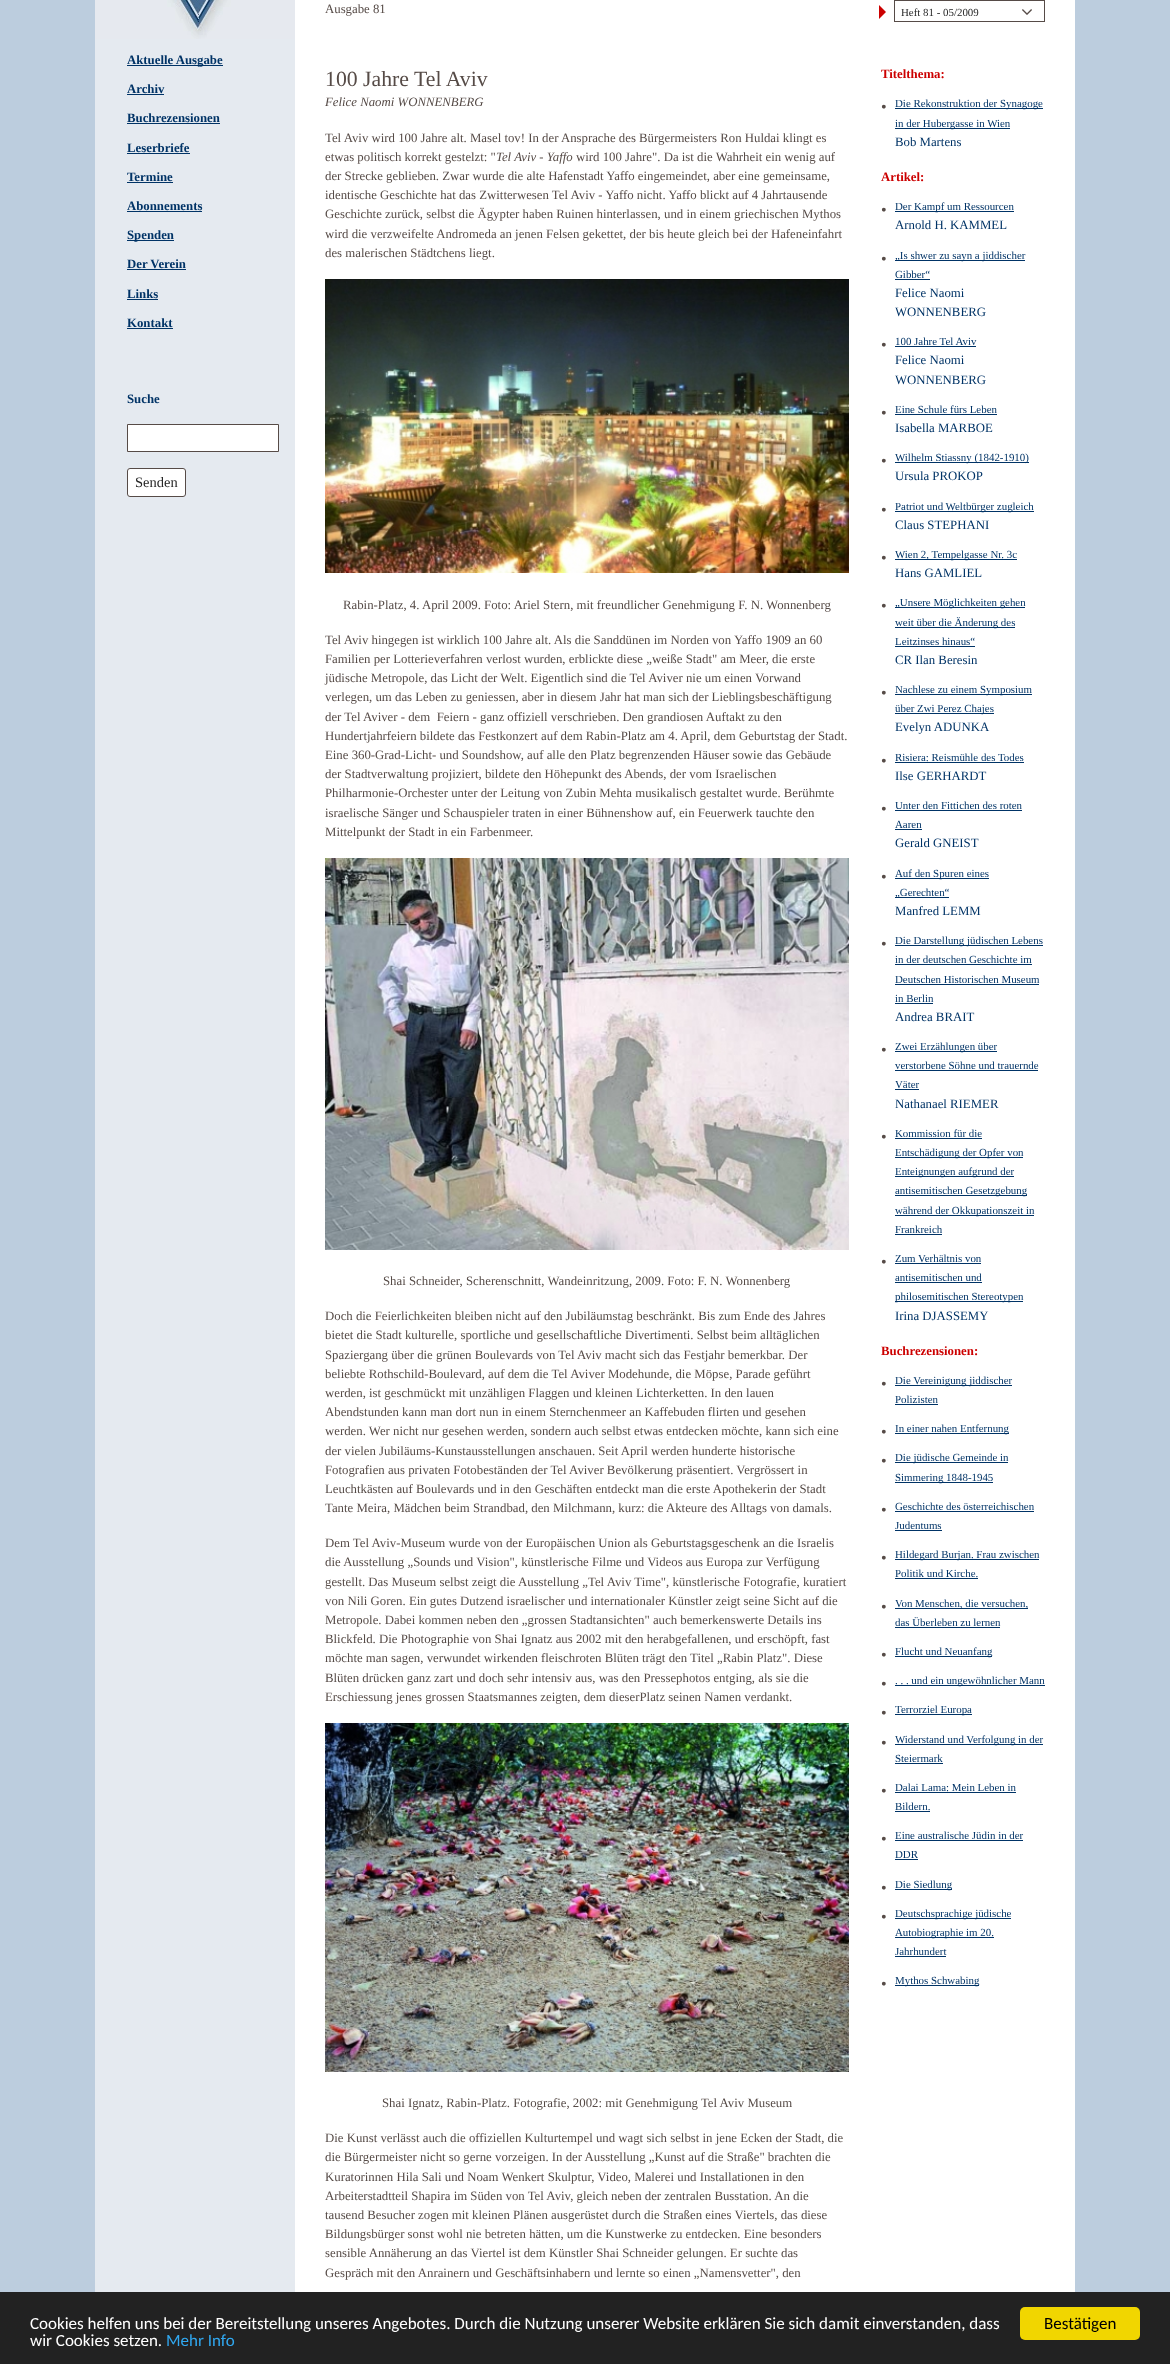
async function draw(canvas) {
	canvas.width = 1170;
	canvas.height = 2364;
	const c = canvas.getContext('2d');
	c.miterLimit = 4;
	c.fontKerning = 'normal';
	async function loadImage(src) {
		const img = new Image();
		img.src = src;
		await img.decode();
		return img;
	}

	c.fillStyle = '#bccdde';
	c.fillRect(0, 0, 1170, 2364);
	c.fillStyle = '#fff';
	c.fillRect(295, 0, 780, 2292);
	c.drawImage(await loadImage('img1.png'), 95, 0, 200, 39);
	c.font = '12.8px Liberation Serif';
	c.fillStyle = '#564b47';
	c.fillText('Ausgabe 81', 325, 13);
	c.fillStyle = '#c00';
	c.beginPath();
	c.moveTo(879, 19);
	c.lineTo(879, 5);
	c.lineTo(886, 12);
	c.closePath();
	c.fill();
	c.strokeStyle = '#564b47';
	c.strokeRect(894.5, 0.5, 150, 21);
	c.font = '10.9px Liberation Serif';
	c.fillStyle = '#262626';
	c.fillText('Heft 81 - 05/2009', 901, 16);
	c.drawImage(await loadImage('img2.png'), 1022, 9, 10, 6);
	c.font = '21.75px Liberation Serif';
	c.fillStyle = '#564b47';
	c.fillText('100 Jahre Tel Aviv', 325, 86);
	c.font = 'italic 12.8px Liberation Serif';
	c.fillText('Felice Naomi WONNENBERG', 325, 106);
	c.font = '12.8px Liberation Serif';
	c.fillText('Tel Aviv wird 100 Jahre alt. Masel tov! In der Ansprache des Bürgermeisters Ron Huldai klingt es', 325, 142);
	c.fillText('etwas politisch korrekt gestelzt: "', 325, 161);
	c.font = 'italic 12.8px Liberation Serif';
	c.fillText('Tel Aviv - Yaffo', 496, 161);
	c.font = '12.8px Liberation Serif';
	for (const [text, x, y] of [
		['wird 100 Jahre". Da ist die Wahrheit ein wenig auf', 576, 161],
		['der Strecke geblieben. Zwar wurde die alte Hafenstadt Yaffo eingemeindet, aber eine gemeinsame,', 325, 180],
		['identische Geschichte hat das Zwitterwesen Tel Aviv - Yaffo nicht. Yaffo blickt auf 4 Jahrtausende', 325, 199],
		['Geschichte zurück, selbst die Ägypter haben Ruinen hinterlassen, und in einem griechischen Mythos', 325, 218],
		['wird die verzweifelte Andromeda an jenen Felsen gekettet, der bis heute gleich bei der Hafeneinfahrt', 325, 238],
		['des malerischen Städtchens liegt.', 325, 257],
	]) {
		c.fillText(text, x, y);
	}
	c.drawImage(await loadImage('img3.png'), 325, 279, 524, 294);
	for (const [text, x, y] of [
		['Rabin-Platz, 4. April 2009. Foto: Ariel Stern, mit freundlicher Genehmigung F. N. Wonnenberg', 343, 609],
		['Tel Aviv hingegen ist wirklich 100 Jahre alt. Als die Sanddünen im Norden von Yaffo 1909 an 60', 325, 644],
		['Familien per Lotterieverfahren verlost wurden, erblickte diese „weiße Stadt" am Meer, die erste', 325, 663],
		['jüdische Metropole, das Licht der Welt. Eigentlich sind die Tel Aviver nie um einen Vorwand', 325, 682],
		['verlegen, um das Leben zu geniessen, aber in diesem Jahr hat man sich der Lieblingsbeschäftigung', 325, 701],
		['der Tel Aviver - dem  Feiern - ganz offiziell verschrieben. Den grandiosen Auftakt zu den', 325, 721],
		['Hundertjahrfeiern bildete das Festkonzert auf dem Rabin-Platz am 4. April, dem Geburtstag der Stadt.', 325, 740],
		['Eine 360-Grad-Licht- und Soundshow, auf alle den Platz begrenzenden Häuser sowie das Gebäude', 325, 759],
		['der Stadtverwaltung projiziert, bildete den Höhepunkt des Abends, der vom Israelischen', 325, 778],
		['Philharmonie-Orchester unter der Leitung von Zubin Mehta musikalisch gestaltet wurde. Berühmte', 325, 797],
		['israelische Sänger und Schauspieler traten in einer Bühnenshow auf, ein Feuerwerk tauchte den', 325, 817],
		['Mittelpunkt der Stadt in ein Farbenmeer.', 325, 836],
	]) {
		c.fillText(text, x, y);
	}
	c.drawImage(await loadImage('img4.png'), 325, 858, 524, 392);
	for (const [text, x, y] of [
		['Shai Schneider, Scherenschnitt, Wandeinritzung, 2009. Foto: F. N. Wonnenberg', 383, 1285],
		['Doch die Feierlichkeiten bleiben nicht auf den Jubiläumstag beschränkt. Bis zum Ende des Jahres', 325, 1320],
		['bietet die Stadt kulturelle, sportliche und gesellschaftliche Divertimenti. Selbst beim alltäglichen', 325, 1339],
		['Spaziergang über die grünen Boulevards von Tel Aviv macht sich das Festjahr bemerkbar. Der', 325, 1359],
		['beliebte Rothschild-Boulevard, auf dem die Tel Aviver Modehunde, die Möpse, Parade geführt', 325, 1378],
		['werden, ist geschmückt mit unzähligen Flaggen und kleinen Lichterketten. In den lauen', 325, 1397],
		['Abendstunden kann man dort nun in einem Sternchenmeer an Kaffebuden flirten und gesehen', 325, 1416],
		['werden. Wer nicht nur gesehen werden, sondern auch selbst etwas entdecken möchte, kann sich eine', 325, 1435],
		['der vielen Jubiläums-Kunstausstellungen anschauen. Seit April werden hunderte historische', 325, 1455],
		['Fotografien aus privaten Fotobeständen der Tel Aviver Bevölkerung präsentiert. Vergrössert in', 325, 1474],
		['Leuchtkästen auf Boulevards und in den Geschäften entdeckt man die erste Apothekerin der Stadt', 325, 1493],
		['Tante Meira, Mädchen beim Strandbad, den Milchmann, kurz: die Akteure des Alltags von damals.', 325, 1512],
		['Dem Tel Aviv-Museum wurde von der Europäischen Union als Geburtstagsgeschenk an die Israelis', 325, 1547],
		['die Ausstellung „Sounds und Vision", künstlerische Filme und Videos aus Europa zur Verfügung', 325, 1566],
		['gestellt. Das Museum selbst zeigt die Ausstellung „Tel Aviv Time", künstlerische Fotografie, kuratiert', 325, 1586],
		['von Nili Goren. Ein gutes Dutzend israelischer und internationaler Künstler zeigt seine Sicht auf die', 325, 1605],
		['Metropole. Dabei kommen neben den „grossen Stadtansichten" auch bemerkenswerte Details ins', 325, 1624],
		['Blickfeld. Die Photographie von Shai Ignatz aus 2002 mit den herabgefallenen, und erschöpft, fast', 325, 1643],
		['möchte man sagen, verwundet wirkenden fleischroten Blüten trägt den Titel „Rabin Platz". Diese', 325, 1662],
		['Blüten drücken ganz zart und doch sehr intensiv aus, was den Pressephotos entging, als sie die', 325, 1682],
		['Erschiessung jenes grossen Staatsmannes zeigten, dem dieserPlatz seinen Namen verdankt.', 325, 1701],
	]) {
		c.fillText(text, x, y);
	}
	c.drawImage(await loadImage('img5.png'), 325, 1723, 524, 349);
	for (const [text, x, y] of [
		['Shai Ignatz, Rabin-Platz. Fotografie, 2002: mit Genehmigung Tel Aviv Museum', 382, 2107],
		['Die Kunst verlässt auch die offiziellen Kulturtempel und wagt sich selbst in jene Ecken der Stadt, die', 325, 2142],
		['die Bürgermeister nicht so gerne vorzeigen. In der Ausstellung „Kunst auf die Straße" brachten die', 325, 2161],
		['Kuratorinnen Hila Sali und Noam Wenkert Skulptur, Video, Malerei und Installationen in den', 325, 2181],
		['Arbeiterstadtteil Shapira im Süden von Tel Aviv, gleich neben der zentralen Busstation. An die', 325, 2200],
		['tausend Besucher zogen mit kleinen Plänen ausgerüstet durch die Straßen eines Viertels, das diese', 325, 2219],
		['Bildungsbürger sonst wohl nie betreten hätten, um die Kunstwerke zu entdecken. Eine besonders', 325, 2238],
		['sensible Annäherung an das Viertel ist dem Künstler Shai Schneider gelungen. Er suchte das', 325, 2257],
		['Gespräch mit den Anrainern und Geschäftsinhabern und lernte so einen „Namensvetter", den', 325, 2277],
	]) {
		c.fillText(text, x, y);
	}
	c.font = 'bold 12.8px Liberation Serif';
	c.fillStyle = '#c00';
	c.fillText('Titelthema:', 881, 78);
	c.font = '16px Liberation Serif';
	c.fillStyle = '#564b47';
	c.fillText('•', 881, 112);
	c.fillStyle = '#036';
	c.fillRect(895, 108, 148, 1);
	c.font = '10.9px Liberation Serif';
	c.fillText('Die Rekonstruktion der Synagoge', 895, 107);
	c.fillRect(895, 128, 115, 1);
	c.fillText('in der Hubergasse in Wien', 895, 127);
	c.font = '12.8px Liberation Serif';
	c.fillText('Bob Martens', 895, 146);
	c.font = 'bold 12.8px Liberation Serif';
	c.fillStyle = '#c00';
	c.fillText('Artikel:', 881, 181);
	c.font = '16px Liberation Serif';
	c.fillStyle = '#564b47';
	c.fillText('•', 881, 215);
	c.fillStyle = '#036';
	c.fillRect(895, 211, 119, 1);
	c.font = '10.9px Liberation Serif';
	c.fillText('Der Kampf um Ressourcen', 895, 210);
	c.font = '12.8px Liberation Serif';
	c.fillText('Arnold H. KAMMEL', 895, 229);
	c.font = '16px Liberation Serif';
	c.fillStyle = '#564b47';
	c.fillText('•', 881, 264);
	c.fillStyle = '#036';
	c.fillRect(895, 260, 130, 1);
	c.font = '10.9px Liberation Serif';
	c.fillText('„Is shwer zu sayn a jiddischer', 895, 259);
	c.fillText('Gibber“', 895, 278);
	c.fillRect(895, 279, 35, 1);
	c.font = '12.8px Liberation Serif';
	c.fillText('Felice Naomi', 895, 297);
	c.fillText('WONNENBERG', 895, 316);
	c.font = '16px Liberation Serif';
	c.fillStyle = '#564b47';
	c.fillText('•', 881, 350);
	c.font = '10.9px Liberation Serif';
	c.fillStyle = '#036';
	c.fillText('100 Jahre Tel Aviv', 895, 345);
	c.fillRect(895, 346, 81, 1);
	c.font = '12.8px Liberation Serif';
	c.fillText('Felice Naomi', 895, 364);
	c.fillText('WONNENBERG', 895, 384);
	c.font = '16px Liberation Serif';
	c.fillStyle = '#564b47';
	c.fillText('•', 881, 418);
	c.font = '10.9px Liberation Serif';
	c.fillStyle = '#036';
	c.fillText('Eine Schule fürs Leben', 895, 413);
	c.fillRect(895, 414, 102, 1);
	c.font = '12.8px Liberation Serif';
	c.fillText('Isabella MARBOE', 895, 432);
	c.font = '16px Liberation Serif';
	c.fillStyle = '#564b47';
	c.fillText('•', 881, 466);
	c.fillStyle = '#036';
	c.fillRect(895, 462, 134, 1);
	c.font = '10.9px Liberation Serif';
	c.fillText('Wilhelm Stiassny (1842-1910)', 895, 461);
	c.font = '12.8px Liberation Serif';
	c.fillText('Ursula PROKOP', 895, 480);
	c.font = '16px Liberation Serif';
	c.fillStyle = '#564b47';
	c.fillText('•', 881, 515);
	c.fillStyle = '#036';
	c.fillRect(895, 511, 139, 1);
	c.font = '10.9px Liberation Serif';
	c.fillText('Patriot und Weltbürger zugleich', 895, 510);
	c.font = '12.8px Liberation Serif';
	c.fillText('Claus STEPHANI', 895, 529);
	c.font = '16px Liberation Serif';
	c.fillStyle = '#564b47';
	c.fillText('•', 881, 563);
	c.fillStyle = '#036';
	c.fillRect(895, 559, 122, 1);
	c.font = '10.9px Liberation Serif';
	c.fillText('Wien 2, Tempelgasse Nr. 3c', 895, 558);
	c.font = '12.8px Liberation Serif';
	c.fillText('Hans GAMLIEL', 895, 577);
	c.font = '16px Liberation Serif';
	c.fillStyle = '#564b47';
	c.fillText('•', 881, 611);
	c.fillStyle = '#036';
	c.fillRect(895, 607, 130, 1);
	c.font = '10.9px Liberation Serif';
	c.fillText('„Unsere Möglichkeiten gehen', 895, 606);
	c.fillRect(895, 627, 120, 1);
	c.fillText('weit über die Änderung des', 895, 626);
	c.fillText('Leitzinses hinaus“', 895, 645);
	c.fillRect(895, 646, 80, 1);
	c.font = '12.8px Liberation Serif';
	c.fillText('CR Ilan Beresin', 895, 664);
	c.font = '16px Liberation Serif';
	c.fillStyle = '#564b47';
	c.fillText('•', 881, 698);
	c.fillStyle = '#036';
	c.fillRect(895, 694, 137, 1);
	c.font = '10.9px Liberation Serif';
	c.fillText('Nachlese zu einem Symposium', 895, 693);
	c.fillRect(895, 713, 99, 1);
	c.fillText('über Zwi Perez Chajes', 895, 712);
	c.font = '12.8px Liberation Serif';
	c.fillText('Evelyn ADUNKA', 895, 731);
	c.font = '16px Liberation Serif';
	c.fillStyle = '#564b47';
	c.fillText('•', 881, 766);
	c.font = '10.9px Liberation Serif';
	c.fillStyle = '#036';
	c.fillText('Risiera: Reismühle des Todes', 895, 761);
	c.fillRect(895, 762, 129, 1);
	c.font = '12.8px Liberation Serif';
	c.fillText('Ilse GERHARDT', 895, 780);
	c.font = '16px Liberation Serif';
	c.fillStyle = '#564b47';
	c.fillText('•', 881, 814);
	c.font = '10.9px Liberation Serif';
	c.fillStyle = '#036';
	c.fillText('Unter den Fittichen des roten', 895, 809);
	c.fillRect(895, 810, 127, 1);
	c.fillText('Aaren', 895, 828);
	c.fillRect(895, 829, 27, 1);
	c.font = '12.8px Liberation Serif';
	c.fillText('Gerald GNEIST', 895, 847);
	c.font = '16px Liberation Serif';
	c.fillStyle = '#564b47';
	c.fillText('•', 881, 882);
	c.fillStyle = '#036';
	c.fillRect(895, 878, 94, 1);
	c.font = '10.9px Liberation Serif';
	c.fillText('Auf den Spuren eines', 895, 877);
	c.fillRect(895, 897, 54, 1);
	c.fillText('„Gerechten“', 895, 896);
	c.font = '12.8px Liberation Serif';
	c.fillText('Manfred LEMM', 895, 915);
	c.font = '16px Liberation Serif';
	c.fillStyle = '#564b47';
	c.fillText('•', 881, 949);
	c.fillStyle = '#036';
	c.fillRect(895, 945, 148, 1);
	c.font = '10.9px Liberation Serif';
	c.fillText('Die Darstellung jüdischen Lebens', 895, 944);
	c.fillText('in der deutschen Geschichte im', 895, 963);
	c.fillRect(895, 964, 137, 1);
	c.fillText('Deutschen Historischen Museum', 895, 983);
	c.fillRect(895, 984, 144, 1);
	c.fillText('in Berlin', 895, 1002);
	c.fillRect(895, 1003, 38, 1);
	c.font = '12.8px Liberation Serif';
	c.fillText('Andrea BRAIT', 895, 1021);
	c.font = '16px Liberation Serif';
	c.fillStyle = '#564b47';
	c.fillText('•', 881, 1055);
	c.fillStyle = '#036';
	c.fillRect(895, 1051, 102, 1);
	c.font = '10.9px Liberation Serif';
	c.fillText('Zwei Erzählungen über', 895, 1050);
	c.fillText('verstorbene Söhne und trauernde', 895, 1069);
	c.fillRect(895, 1070, 143, 1);
	c.fillText('Väter', 895, 1088);
	c.fillRect(895, 1089, 24, 1);
	c.font = '12.8px Liberation Serif';
	c.fillText('Nathanael RIEMER', 895, 1108);
	c.font = '16px Liberation Serif';
	c.fillStyle = '#564b47';
	c.fillText('•', 881, 1142);
	c.font = '10.9px Liberation Serif';
	c.fillStyle = '#036';
	c.fillText('Kommission für die', 895, 1137);
	c.fillRect(895, 1138, 87, 1);
	c.fillRect(895, 1157, 128, 1);
	c.fillText('Entschädigung der Opfer von', 895, 1156);
	c.fillRect(895, 1176, 119, 1);
	c.fillText('Enteignungen aufgrund der', 895, 1175);
	c.fillRect(895, 1195, 132, 1);
	c.fillText('antisemitischen Gesetzgebung', 895, 1194);
	c.fillRect(895, 1215, 139, 1);
	c.fillText('während der Okkupationszeit in', 895, 1214);
	c.fillText('Frankreich', 895, 1233);
	c.fillRect(895, 1234, 47, 1);
	c.font = '16px Liberation Serif';
	c.fillStyle = '#564b47';
	c.fillText('•', 881, 1267);
	c.font = '10.9px Liberation Serif';
	c.fillStyle = '#036';
	c.fillText('Zum Verhältnis von', 895, 1262);
	c.fillRect(895, 1263, 86, 1);
	c.fillText('antisemitischen und', 895, 1281);
	c.fillRect(895, 1282, 87, 1);
	c.fillRect(895, 1301, 128, 1);
	c.fillText('philosemitischen Stereotypen', 895, 1300);
	c.font = '12.8px Liberation Serif';
	c.fillText('Irina DJASSEMY', 895, 1320);
	c.font = 'bold 12.8px Liberation Serif';
	c.fillStyle = '#c00';
	c.fillText('Buchrezensionen:', 881, 1355);
	c.font = '16px Liberation Serif';
	c.fillStyle = '#564b47';
	c.fillText('•', 881, 1389);
	c.fillStyle = '#036';
	c.fillRect(895, 1385, 117, 1);
	c.font = '10.9px Liberation Serif';
	c.fillText('Die Vereinigung jiddischer', 895, 1384);
	c.fillText('Polizisten', 895, 1403);
	c.fillRect(895, 1404, 43, 1);
	c.font = '16px Liberation Serif';
	c.fillStyle = '#564b47';
	c.fillText('•', 881, 1437);
	c.fillStyle = '#036';
	c.fillRect(895, 1433, 114, 1);
	c.font = '10.9px Liberation Serif';
	c.fillText('In einer nahen Entfernung', 895, 1432);
	c.font = '16px Liberation Serif';
	c.fillStyle = '#564b47';
	c.fillText('•', 881, 1466);
	c.fillStyle = '#036';
	c.fillRect(895, 1462, 113, 1);
	c.font = '10.9px Liberation Serif';
	c.fillText('Die jüdische Gemeinde in', 895, 1461);
	c.fillRect(895, 1482, 98, 1);
	c.fillText('Simmering 1848-1945', 895, 1481);
	c.font = '16px Liberation Serif';
	c.fillStyle = '#564b47';
	c.fillText('•', 881, 1515);
	c.font = '10.9px Liberation Serif';
	c.fillStyle = '#036';
	c.fillText('Geschichte des österreichischen', 895, 1510);
	c.fillRect(895, 1511, 139, 1);
	c.fillText('Judentums', 895, 1529);
	c.fillRect(895, 1530, 47, 1);
	c.font = '16px Liberation Serif';
	c.fillStyle = '#564b47';
	c.fillText('•', 881, 1563);
	c.fillStyle = '#036';
	c.fillRect(895, 1559, 144, 1);
	c.font = '10.9px Liberation Serif';
	c.fillText('Hildegard Burjan. Frau zwischen', 895, 1558);
	c.fillText('Politik und Kirche.', 895, 1577);
	c.fillRect(895, 1578, 83, 1);
	c.font = '16px Liberation Serif';
	c.fillStyle = '#564b47';
	c.fillText('•', 881, 1612);
	c.fillStyle = '#036';
	c.fillRect(895, 1608, 133, 1);
	c.font = '10.9px Liberation Serif';
	c.fillText('Von Menschen, die versuchen,', 895, 1607);
	c.fillText('das Überleben zu lernen', 895, 1626);
	c.fillRect(895, 1627, 105, 1);
	c.font = '16px Liberation Serif';
	c.fillStyle = '#564b47';
	c.fillText('•', 881, 1660);
	c.fillStyle = '#036';
	c.fillRect(895, 1656, 97, 1);
	c.font = '10.9px Liberation Serif';
	c.fillText('Flucht und Neuanfang', 895, 1655);
	c.font = '16px Liberation Serif';
	c.fillStyle = '#564b47';
	c.fillText('•', 881, 1689);
	c.fillStyle = '#036';
	c.fillRect(895, 1685, 150, 1);
	c.font = '10.9px Liberation Serif';
	c.fillText('. . . und ein ungewöhnlicher Mann', 895, 1684);
	c.font = '16px Liberation Serif';
	c.fillStyle = '#564b47';
	c.fillText('•', 881, 1718);
	c.fillStyle = '#036';
	c.fillRect(895, 1714, 77, 1);
	c.font = '10.9px Liberation Serif';
	c.fillText('Terrorziel Europa', 895, 1713);
	c.font = '16px Liberation Serif';
	c.fillStyle = '#564b47';
	c.fillText('•', 881, 1748);
	c.fillStyle = '#036';
	c.fillRect(895, 1744, 148, 1);
	c.font = '10.9px Liberation Serif';
	c.fillText('Widerstand und Verfolgung in der', 895, 1743);
	c.fillText('Steiermark', 895, 1762);
	c.fillRect(895, 1763, 48, 1);
	c.font = '16px Liberation Serif';
	c.fillStyle = '#564b47';
	c.fillText('•', 881, 1796);
	c.font = '10.9px Liberation Serif';
	c.fillStyle = '#036';
	c.fillText('Dalai Lama: Mein Leben in', 895, 1791);
	c.fillRect(895, 1792, 121, 1);
	c.fillText('Bildern.', 895, 1810);
	c.fillRect(895, 1811, 35, 1);
	c.font = '16px Liberation Serif';
	c.fillStyle = '#564b47';
	c.fillText('•', 881, 1844);
	c.font = '10.9px Liberation Serif';
	c.fillStyle = '#036';
	c.fillText('Eine australische Jüdin in der', 895, 1839);
	c.fillRect(895, 1840, 128, 1);
	c.fillText('DDR', 895, 1858);
	c.fillRect(895, 1859, 23, 1);
	c.font = '16px Liberation Serif';
	c.fillStyle = '#564b47';
	c.fillText('•', 881, 1893);
	c.fillStyle = '#036';
	c.fillRect(895, 1889, 57, 1);
	c.font = '10.9px Liberation Serif';
	c.fillText('Die Siedlung', 895, 1888);
	c.font = '16px Liberation Serif';
	c.fillStyle = '#564b47';
	c.fillText('•', 881, 1922);
	c.fillStyle = '#036';
	c.fillRect(895, 1918, 116, 1);
	c.font = '10.9px Liberation Serif';
	c.fillText('Deutschsprachige jüdische', 895, 1917);
	c.fillRect(895, 1937, 99, 1);
	c.fillText('Autobiographie im 20.', 895, 1936);
	c.fillText('Jahrhundert', 895, 1955);
	c.fillRect(895, 1956, 51, 1);
	c.font = '16px Liberation Serif';
	c.fillStyle = '#564b47';
	c.fillText('•', 881, 1989);
	c.fillStyle = '#036';
	c.fillRect(895, 1985, 84, 1);
	c.font = '10.9px Liberation Serif';
	c.fillText('Mythos Schwabing', 895, 1984);
	c.fillStyle = '#e5eaf0';
	c.fillRect(95, 39, 200, 2253);
	c.fillStyle = '#036';
	c.fillRect(127, 65, 96, 1);
	c.font = 'bold 12.8px Liberation Serif';
	c.fillText('Aktuelle Ausgabe', 127, 64);
	c.fillText('Archiv', 127, 93);
	c.fillRect(127, 94, 37, 1);
	c.fillText('Buchrezensionen', 127, 122);
	c.fillRect(127, 123, 93, 1);
	c.fillText('Leserbriefe', 127, 152);
	c.fillRect(127, 153, 63, 1);
	c.fillText('Termine', 127, 181);
	c.fillRect(127, 182, 46, 1);
	c.fillText('Abonnements', 127, 210);
	c.fillRect(127, 211, 75, 1);
	c.fillRect(127, 240, 47, 1);
	c.fillText('Spenden', 127, 239);
	c.fillText('Der Verein', 127, 268);
	c.fillRect(127, 269, 59, 1);
	c.fillText('Links', 127, 298);
	c.fillRect(127, 299, 31, 1);
	c.fillText('Kontakt', 127, 327);
	c.fillRect(127, 328, 46, 1);
	c.fillText('Suche', 127, 403);
	c.fillStyle = '#fff';
	c.beginPath();
	c.rect(127.5, 424.5, 151, 27);
	c.fill();
	c.stroke();
	c.beginPath();
	c.roundRect(127.5, 468.5, 58, 28, 2.5);
	c.fill();
	c.stroke();
	c.font = '14.5px Liberation Serif';
	c.fillStyle = '#262626';
	c.fillText('Senden', 135, 487);
	c.fillStyle = '#222';
	c.fillRect(0, 2292, 1170, 72);
	c.font = '17px Carlito';
	c.fillStyle = '#fff';
	c.fillText('Cookies helfen uns bei der Bereitstellung unseres Angebotes. Durch die Nutzung unserer Website erklären Sie sich damit einverstanden, dass', 30, 2329);
	c.fillText('wir Cookies setzen.', 30, 2346);
	c.fillStyle = '#31a8f0';
	c.fillText('Mehr Info', 166, 2346);
	c.fillStyle = '#f1d600';
	c.beginPath();
	c.roundRect(1020, 2307, 120, 33, 5);
	c.fill();
	c.fillStyle = '#000';
	c.fillText('Bestätigen', 1044, 2329);
}

draw(document.querySelector('canvas'));
